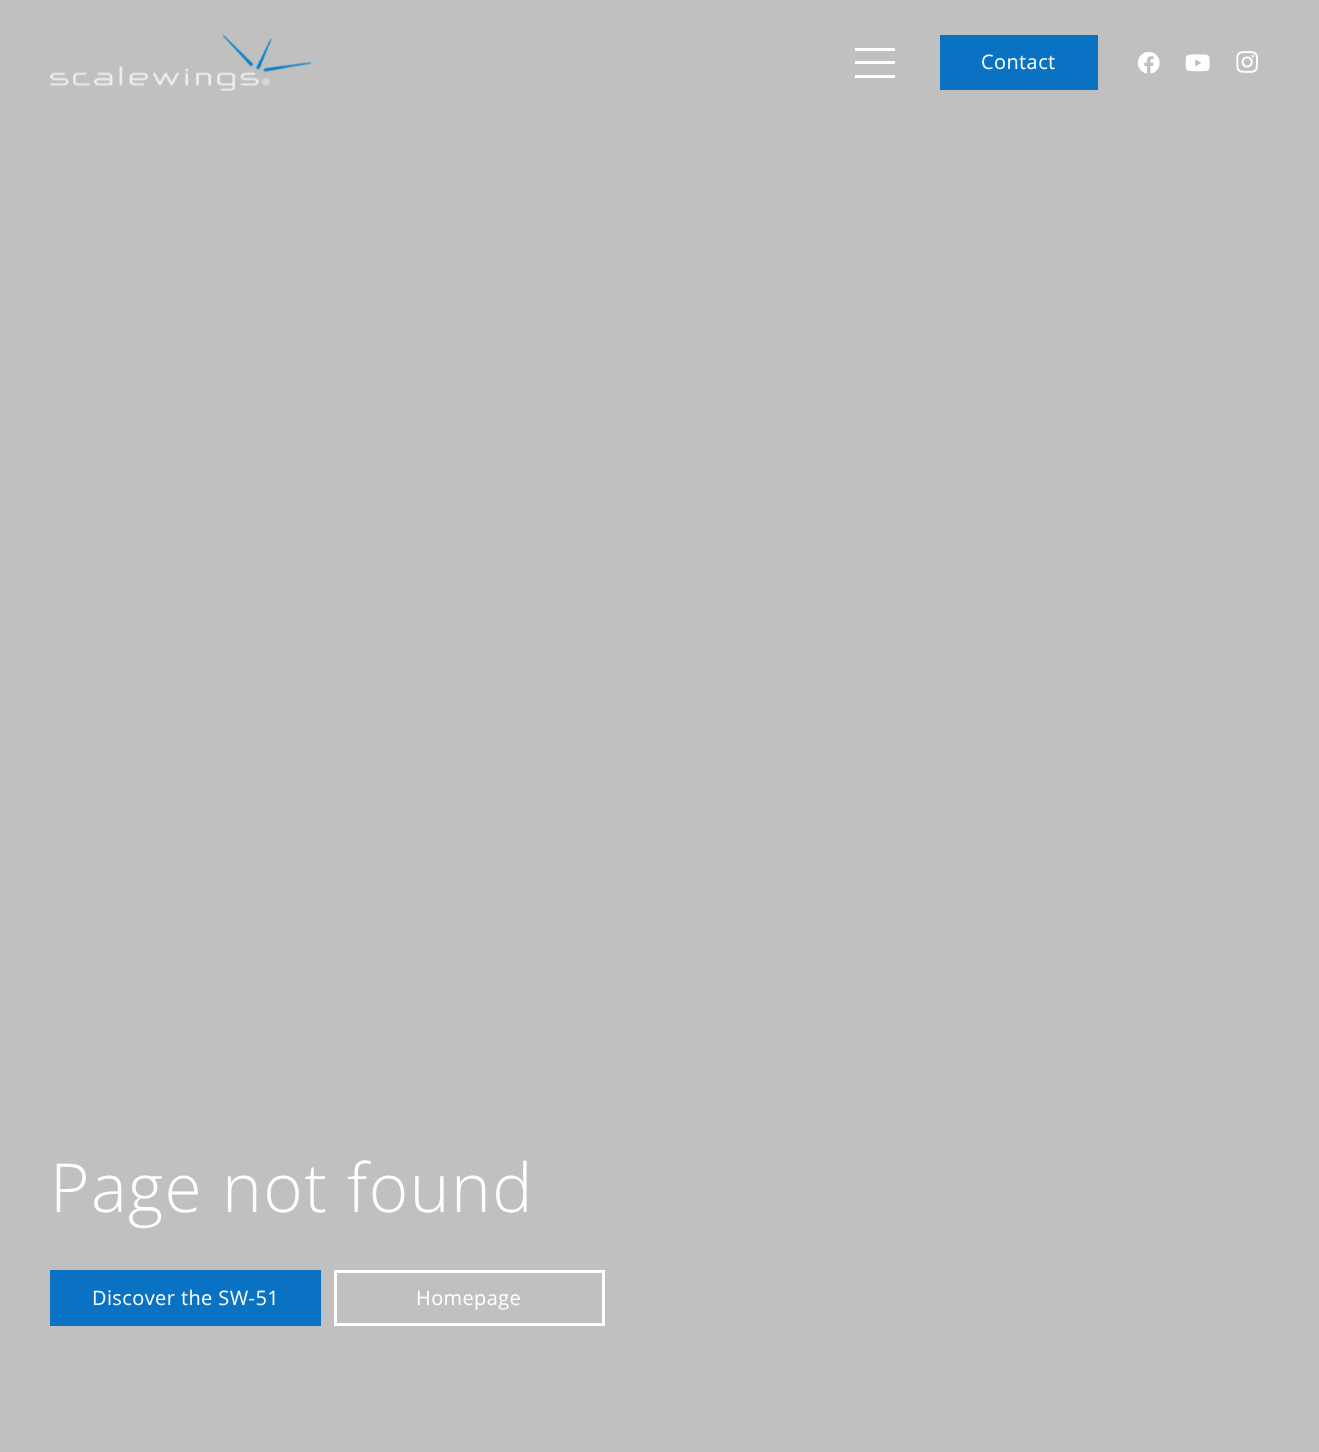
async function draw(canvas) {
	canvas.width = 1319;
	canvas.height = 1452;
	const c = canvas.getContext('2d');
	c.miterLimit = 4;
	c.fontKerning = 'normal';
	async function loadImage(src) {
		const img = new Image();
		img.src = src;
		await img.decode();
		return img;
	}

	c.fillStyle = '#c0c0c0';
	c.fillRect(0, 0, 1319, 1452);
	c.drawImage(await loadImage('img1.png'), 50, 34, 262, 58);
	for (const [x, y, w, h, color] of [
		[855, 61, 40, 3, '#fff'],
		[855, 48, 40, 3, '#fff'],
		[855, 75, 40, 3, '#fff'],
		[940, 35, 158, 55, '#0972c2'],
	]) {
		c.fillStyle = color;
		c.fillRect(x, y, w, h);
	}
	c.letterSpacing = '0.4px';
	c.font = '20px Open Sans';
	c.fillStyle = '#fff';
	c.fillText('Contact', 981, 69);
	c.drawImage(await loadImage('img2.png'), 1137, 52, 23, 22);
	c.drawImage(await loadImage('img3.png'), 1185, 54, 25, 18);
	c.drawImage(await loadImage('img4.png'), 1236, 51, 22, 22);
	c.letterSpacing = '1.4px';
	c.font = '300 67.5px Open Sans';
	c.fillText('Page not found', 50, 1212);
	c.fillStyle = '#0972c2';
	c.fillRect(50, 1270, 271, 56);
	c.letterSpacing = '0.4px';
	c.font = '20px Open Sans';
	c.fillStyle = '#fff';
	c.fillText('Discover the SW-51', 92, 1305);
	c.strokeStyle = '#fff';
	c.lineWidth = 3;
	c.strokeRect(335.5, 1271.5, 268, 53);
	c.fillText('Homepage', 416, 1305);
}

draw(document.querySelector('canvas'));
